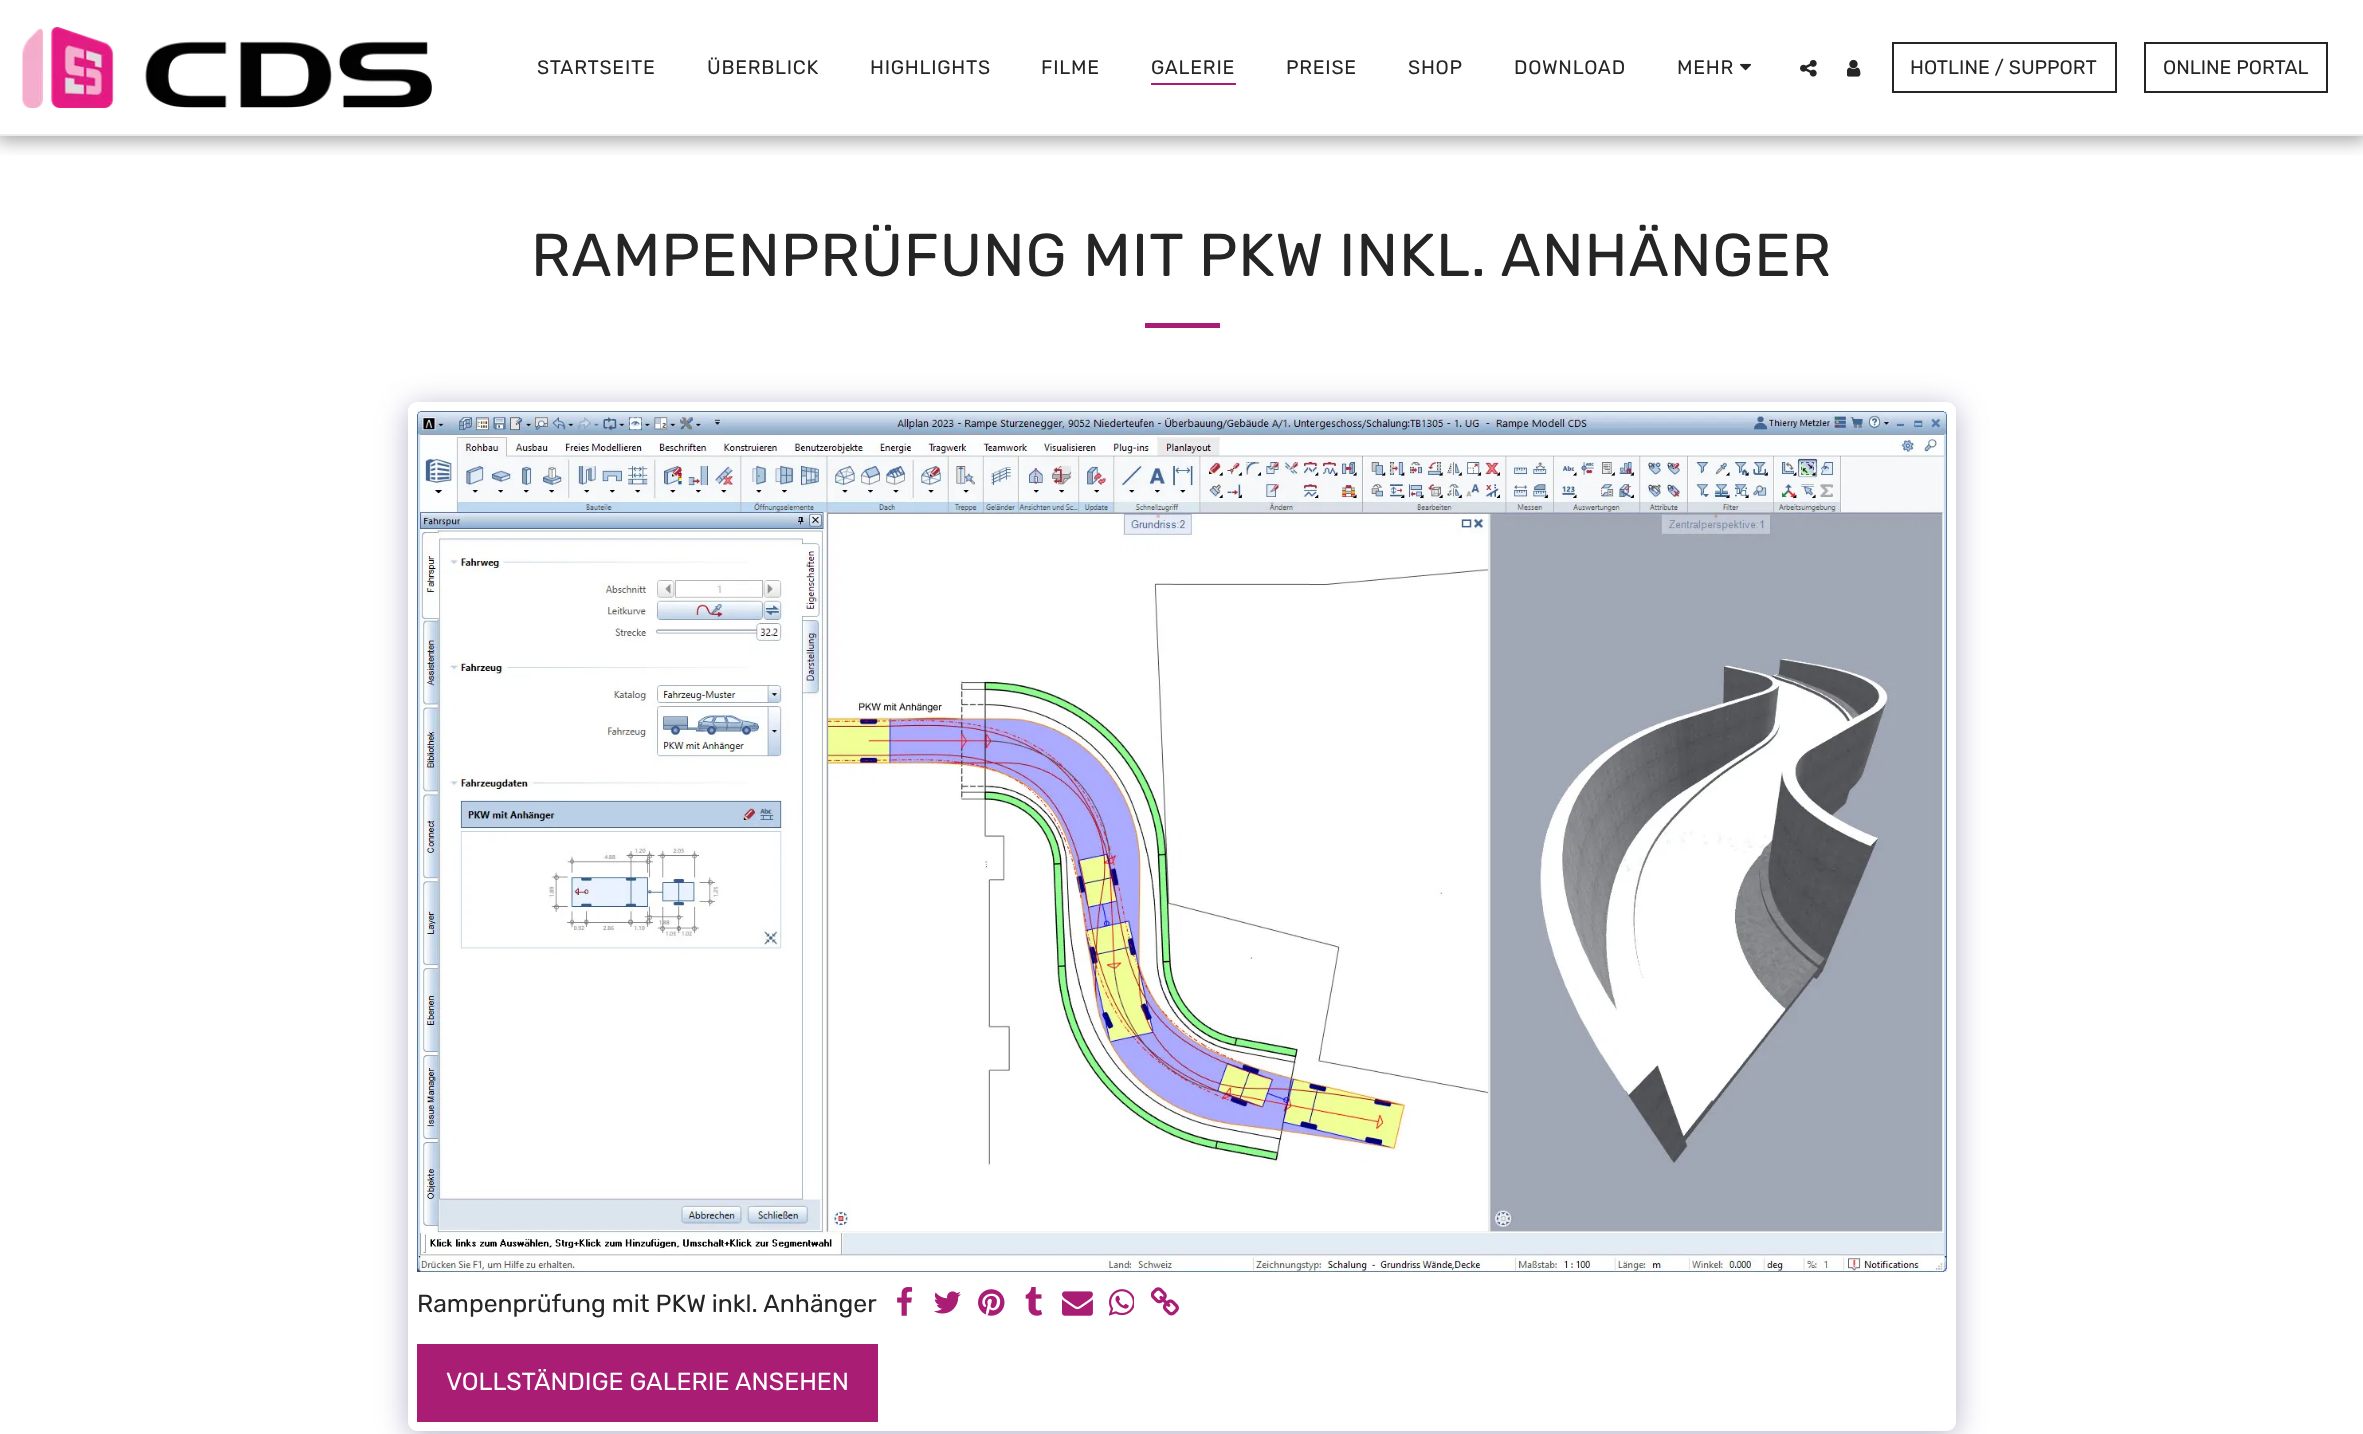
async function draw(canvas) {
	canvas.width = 2363;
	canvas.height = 1434;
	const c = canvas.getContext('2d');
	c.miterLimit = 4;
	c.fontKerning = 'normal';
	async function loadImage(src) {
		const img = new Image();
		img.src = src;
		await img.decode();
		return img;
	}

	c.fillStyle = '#fff';
	c.fillRect(0, 0, 2363, 1434);
	c.save();
	c.beginPath();
	c.rect(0, 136, 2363, 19);
	c.clip();
	c.fillStyle = '#00000059';
	c.filter = 'blur(9px)';
	c.beginPath();
	c.rect(-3, 0, 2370, 141);
	c.fill();
	c.filter = 'none';
	c.restore();
	c.fillStyle = '#ebebeb';
	c.fillRect(0, 134, 2363, 2);
	c.drawImage(await loadImage('img1.png'), 22, 27, 410, 81);
	c.letterSpacing = '0.75px';
	c.font = '19.5px Rubik';
	c.fillStyle = '#252525';
	for (const [text, x, y] of [
		['STARTSEITE', 537, 74],
		['ÜBERBLICK', 707, 74],
		['HIGHLIGHTS', 870, 74],
		['FILME', 1041, 74],
		['GALERIE', 1151, 74],
	]) {
		c.fillText(text, x, y);
	}
	c.fillStyle = '#a91d74';
	c.fillRect(1151, 83, 85, 2);
	c.fillStyle = '#252525';
	for (const [text, x, y] of [
		['PREISE', 1286, 74],
		['SHOP', 1408, 74],
		['DOWNLOAD', 1514, 74],
		['MEHR', 1677, 74],
	]) {
		c.fillText(text, x, y);
	}
	c.drawImage(await loadImage('img2.png'), 1740, 63, 11, 8);
	c.drawImage(await loadImage('img3.png'), 1800, 59, 17, 18);
	c.drawImage(await loadImage('img4.png'), 1847, 59, 14, 18);
	c.strokeStyle = '#252525';
	c.lineWidth = 2;
	c.strokeRect(1893, 43, 223, 49);
	c.letterSpacing = '0px';
	c.fillText('HOTLINE / SUPPORT', 1910, 74);
	c.strokeRect(2145, 43, 182, 49);
	c.fillText('ONLINE PORTAL', 2163, 74);
	c.letterSpacing = '0.75px';
	c.font = '60.4px Rubik';
	c.fillText('RAMPENPRÜFUNG MIT PKW INKL. ANHÄNGER', 531, 276);
	c.fillStyle = '#a91d74';
	c.fillRect(1145, 323, 75, 5);
	c.fillStyle = '#4d3f7a66';
	c.filter = 'blur(15px)';
	c.beginPath();
	c.roundRect(408, 407, 1548, 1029, 9);
	c.fill();
	c.filter = 'none';
	c.fillStyle = '#fff';
	c.beginPath();
	c.roundRect(408, 402, 1548, 1029, 9);
	c.fill();
	c.drawImage(await loadImage('img5.png'), 417, 411, 1530, 861);
	c.letterSpacing = '0px';
	c.font = '24.75px Rubik';
	c.fillStyle = '#252525';
	c.fillText('Rampenprüfung mit PKW inkl. Anhänger', 417, 1312);
	c.drawImage(await loadImage('img6.png'), 897, 1287, 16, 29);
	c.drawImage(await loadImage('img7.png'), 934, 1291, 27, 23);
	c.drawImage(await loadImage('img8.png'), 978, 1289, 27, 27);
	c.drawImage(await loadImage('img9.png'), 1025, 1287, 18, 29);
	c.drawImage(await loadImage('img10.png'), 1062, 1291, 31, 25);
	c.drawImage(await loadImage('img11.png'), 1109, 1289, 25, 27);
	c.drawImage(await loadImage('img12.png'), 1151, 1287, 28, 29);
	c.fillStyle = '#a91d74';
	c.fillRect(417, 1344, 461, 78);
	c.fillStyle = '#fff';
	c.fillText('VOLLSTÄNDIGE GALERIE ANSEHEN', 446, 1390);
}

draw(document.querySelector('canvas'));
